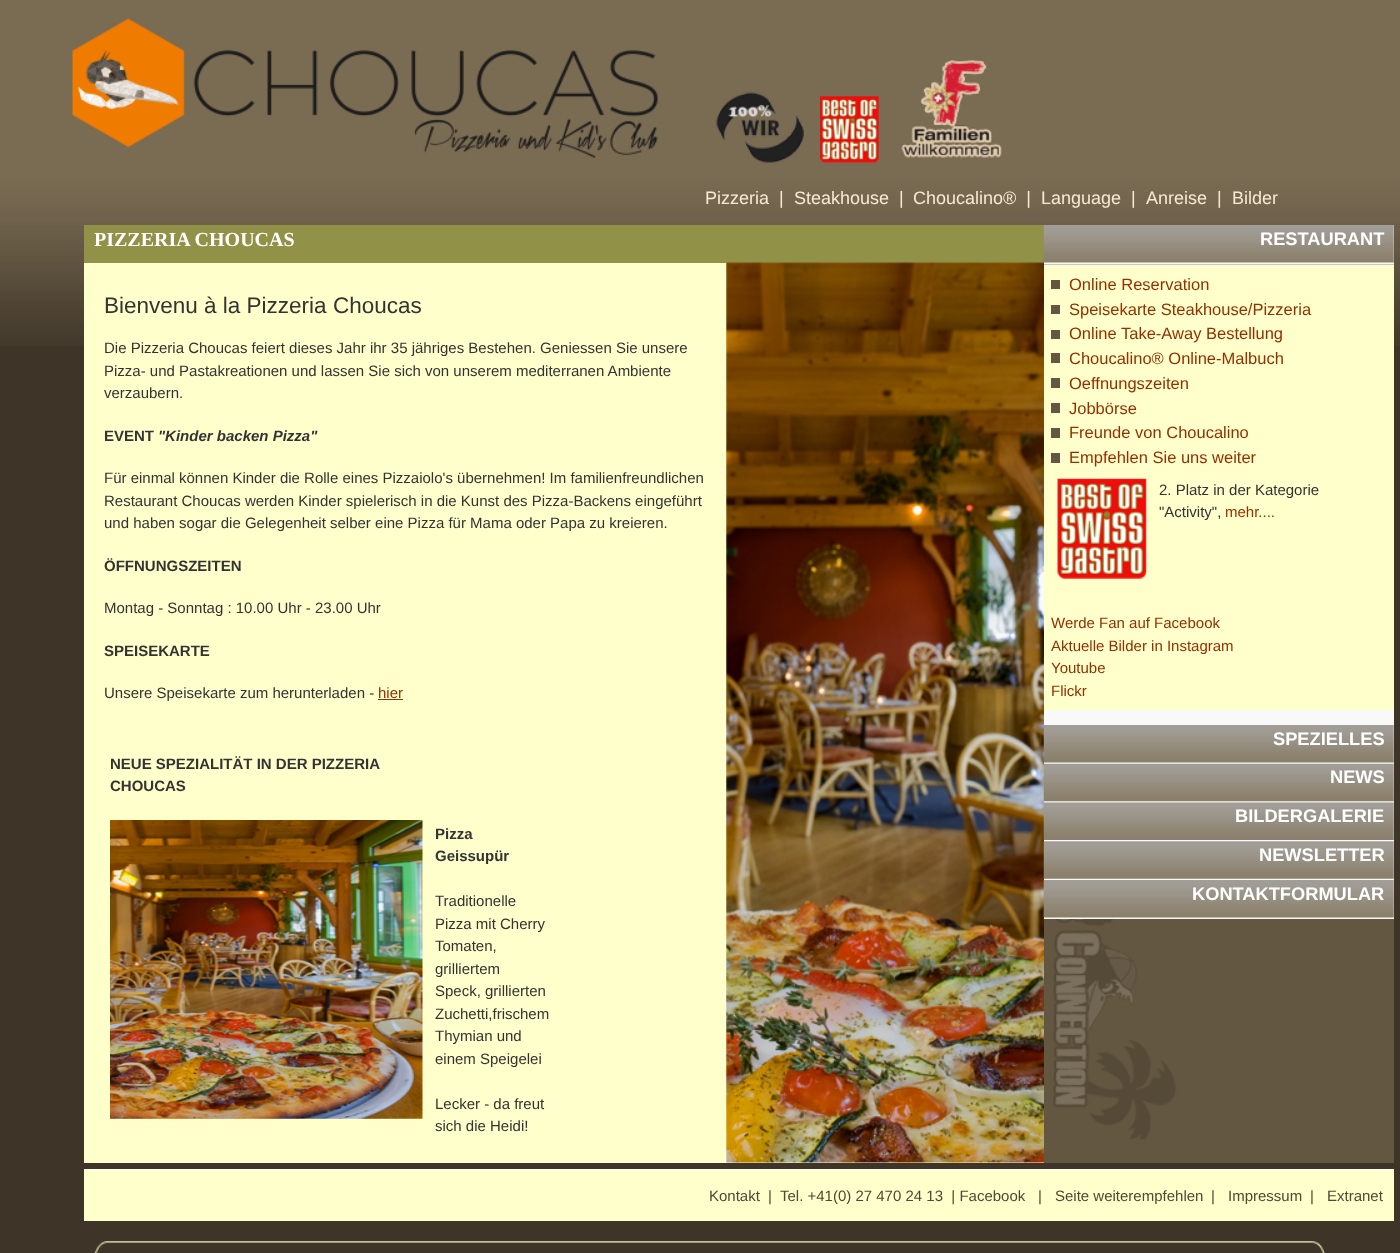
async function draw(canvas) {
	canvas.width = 1400;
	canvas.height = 1253;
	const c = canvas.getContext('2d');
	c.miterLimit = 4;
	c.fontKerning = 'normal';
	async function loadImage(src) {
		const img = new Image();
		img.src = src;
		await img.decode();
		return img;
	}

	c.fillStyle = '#3e3528';
	c.fillRect(0, 0, 1400, 1253);
	c.drawImage(await loadImage('img1.png'), 0, 0, 1400, 346);
	c.drawImage(await loadImage('img2.png'), 72, 18, 586, 140);
	c.drawImage(await loadImage('img3.png'), 716, 92, 88, 71);
	c.drawImage(await loadImage('img4.png'), 820, 96, 59, 67);
	c.drawImage(await loadImage('img5.png'), 901, 60, 101, 98);
	c.font = '18px Liberation Sans';
	c.fillStyle = '#f8ead1';
	for (const [text, x, y] of [
		['Pizzeria  |', 705, 204],
		['Steakhouse  |', 794, 204],
		['Choucalino®  |', 913, 204],
		['Language  |', 1041, 204],
		['Anreise  |', 1146, 204],
		['Bilder', 1232, 204],
	]) {
		c.fillText(text, x, y);
	}
	c.fillStyle = '#919148';
	c.fillRect(84, 225, 960, 38);
	c.font = 'bold 20px Liberation Serif';
	c.fillStyle = '#fff';
	c.fillText('PIZZERIA CHOUCAS', 94, 246);
	c.fillStyle = '#ffc';
	c.fillRect(84, 263, 960, 900);
	c.font = '22.5px Liberation Sans';
	c.fillStyle = '#333';
	c.fillText('Bienvenu à la Pizzeria Choucas', 104, 313);
	c.font = '15px Liberation Sans';
	for (const [text, x, y] of [
		['Die Pizzeria Choucas feiert dieses Jahr ihr 35 jähriges Bestehen. Geniessen Sie unsere', 104, 353],
		['Pizza- und Pastakreationen und lassen Sie sich von unserem mediterranen Ambiente', 104, 376],
		['verzaubern.', 104, 398],
	]) {
		c.fillText(text, x, y);
	}
	c.font = 'bold 15px Liberation Sans';
	c.fillText('EVENT', 104, 441);
	c.font = 'italic bold 15px Liberation Sans';
	c.fillText('"Kinder backen Pizza"', 158, 441);
	c.font = '15px Liberation Sans';
	for (const [text, x, y] of [
		['Für einmal können Kinder die Rolle eines Pizzaiolo\'s übernehmen! Im familienfreundlichen', 104, 483],
		['Restaurant Choucas werden Kinder spielerisch in die Kunst des Pizza-Backens eingeführt', 104, 506],
		['und haben sogar die Gelegenheit selber eine Pizza für Mama oder Papa zu kreieren.', 104, 528],
	]) {
		c.fillText(text, x, y);
	}
	c.font = 'bold 15px Liberation Sans';
	c.fillText('ÖFFNUNGSZEITEN', 104, 571);
	c.font = '15px Liberation Sans';
	c.fillText('Montag - Sonntag : 10.00 Uhr - 23.00 Uhr', 104, 613);
	c.font = 'bold 15px Liberation Sans';
	c.fillText('SPEISEKARTE', 104, 656);
	c.font = '15px Liberation Sans';
	c.fillText('Unsere Speisekarte zum herunterladen -', 104, 698);
	c.fillStyle = '#933000';
	c.fillText('hier', 378, 698);
	c.fillRect(378, 699, 25, 1);
	c.drawImage(await loadImage('img6.png'), 726, 262, 318, 901);
	c.font = 'bold 15px Liberation Sans';
	c.fillStyle = '#333';
	c.fillText('NEUE SPEZIALITÄT IN DER PIZZERIA', 110, 769);
	c.fillText('CHOUCAS', 110, 791);
	c.drawImage(await loadImage('img7.png'), 110, 820, 313, 299);
	c.fillText('Pizza', 435, 839);
	c.fillText('Geissupür', 435, 861);
	c.font = '15px Liberation Sans';
	for (const [text, x, y] of [
		['Traditionelle', 435, 906],
		['Pizza mit Cherry', 435, 929],
		['Tomaten,', 435, 951],
		['grilliertem', 435, 974],
		['Speck, grillierten', 435, 996],
		['Zuchetti,frischem', 435, 1019],
		['Thymian und', 435, 1041],
		['einem Speigelei', 435, 1064],
		['Lecker - da freut', 435, 1109],
		['sich die Heidi!', 435, 1131],
	]) {
		c.fillText(text, x, y);
	}
	c.fillStyle = '#645741';
	c.fillRect(1044, 919, 350, 244);
	c.drawImage(await loadImage('img8.png'), 1053, 919, 124, 221);
	c.fillStyle = '#f9f9f9';
	c.fillRect(1044, 225, 350, 694);
	c.drawImage(await loadImage('img9.png'), 1043, 225, 351, 38);
	c.font = 'bold 18.25px Liberation Sans';
	c.fillStyle = '#fff';
	c.fillText('RESTAURANT', 1260, 245);
	c.fillStyle = '#ffc';
	c.fillRect(1044, 265, 350, 445);
	c.fillStyle = '#c6c6c6';
	c.fillRect(1044, 264, 350, 1);
	c.font = '16.5px Liberation Sans';
	c.fillStyle = '#933000';
	c.fillText('Online Reservation', 1069, 290);
	c.fillStyle = '#645741';
	c.fillRect(1051, 280, 9, 9);
	c.fillStyle = '#933000';
	c.fillText('Speisekarte Steakhouse/Pizzeria', 1069, 315);
	c.fillStyle = '#645741';
	c.fillRect(1051, 305, 9, 9);
	c.fillStyle = '#933000';
	c.fillText('Online Take-Away Bestellung', 1069, 339);
	c.fillStyle = '#645741';
	c.fillRect(1051, 330, 9, 9);
	c.fillStyle = '#933000';
	c.fillText('Choucalino® Online-Malbuch', 1069, 364);
	c.fillStyle = '#645741';
	c.fillRect(1051, 353, 9, 10);
	c.fillStyle = '#933000';
	c.fillText('Oeffnungszeiten', 1069, 389);
	c.fillStyle = '#645741';
	c.fillRect(1051, 378, 9, 10);
	c.fillStyle = '#933000';
	c.fillText('Jobbörse', 1069, 414);
	c.fillStyle = '#645741';
	c.fillRect(1051, 403, 9, 10);
	c.fillStyle = '#933000';
	c.fillText('Freunde von Choucalino', 1069, 438);
	c.fillStyle = '#645741';
	c.fillRect(1051, 428, 9, 10);
	c.fillStyle = '#933000';
	c.fillText('Empfehlen Sie uns weiter', 1069, 463);
	c.fillStyle = '#645741';
	c.fillRect(1051, 453, 9, 10);
	c.drawImage(await loadImage('img10.png'), 1057, 478, 90, 101);
	c.font = '15px Liberation Sans';
	c.fillStyle = '#333';
	c.fillText('2. Platz in der Kategorie', 1159, 495);
	c.fillText('"Activity",', 1159, 517);
	c.fillStyle = '#933000';
	for (const [text, x, y] of [
		['mehr....', 1225, 517],
		['Werde Fan auf Facebook', 1051, 628],
		['Aktuelle Bilder in Instagram', 1051, 651],
		['Youtube', 1051, 673],
		['Flickr', 1051, 696],
	]) {
		c.fillText(text, x, y);
	}
	c.drawImage(await loadImage('img11.png'), 1043, 725, 351, 38);
	c.font = 'bold 18.25px Liberation Sans';
	c.fillStyle = '#fff';
	c.fillText('SPEZIELLES', 1273, 745);
	c.drawImage(await loadImage('img12.png'), 1043, 763, 351, 39);
	c.fillText('NEWS', 1330, 783);
	c.drawImage(await loadImage('img13.png'), 1043, 802, 351, 38);
	c.fillText('BILDERGALERIE', 1235, 822);
	c.drawImage(await loadImage('img14.png'), 1043, 841, 351, 38);
	c.fillText('NEWSLETTER', 1259, 861);
	c.drawImage(await loadImage('img15.png'), 1043, 880, 351, 38);
	c.fillText('KONTAKTFORMULAR', 1192, 900);
	c.fillStyle = '#ffc';
	c.fillRect(84, 1170, 1310, 51);
	c.fillStyle = '#fff';
	c.fillRect(84, 1169, 1310, 1);
	c.font = '15px Liberation Sans';
	c.fillStyle = '#524635';
	for (const [text, x, y] of [
		['Kontakt', 709, 1201],
		['|  Tel. +41(0) 27 470 24 13  | Facebook', 768, 1201],
		['|', 1038, 1201],
		['Seite weiterempfehlen', 1055, 1201],
		['|', 1211, 1201],
		['Impressum', 1228, 1201],
		['|', 1310, 1201],
		['Extranet', 1327, 1201],
	]) {
		c.fillText(text, x, y);
	}
	c.drawImage(await loadImage('img16.png'), 94, 1241, 1232, 12);
}

draw(document.querySelector('canvas'));
